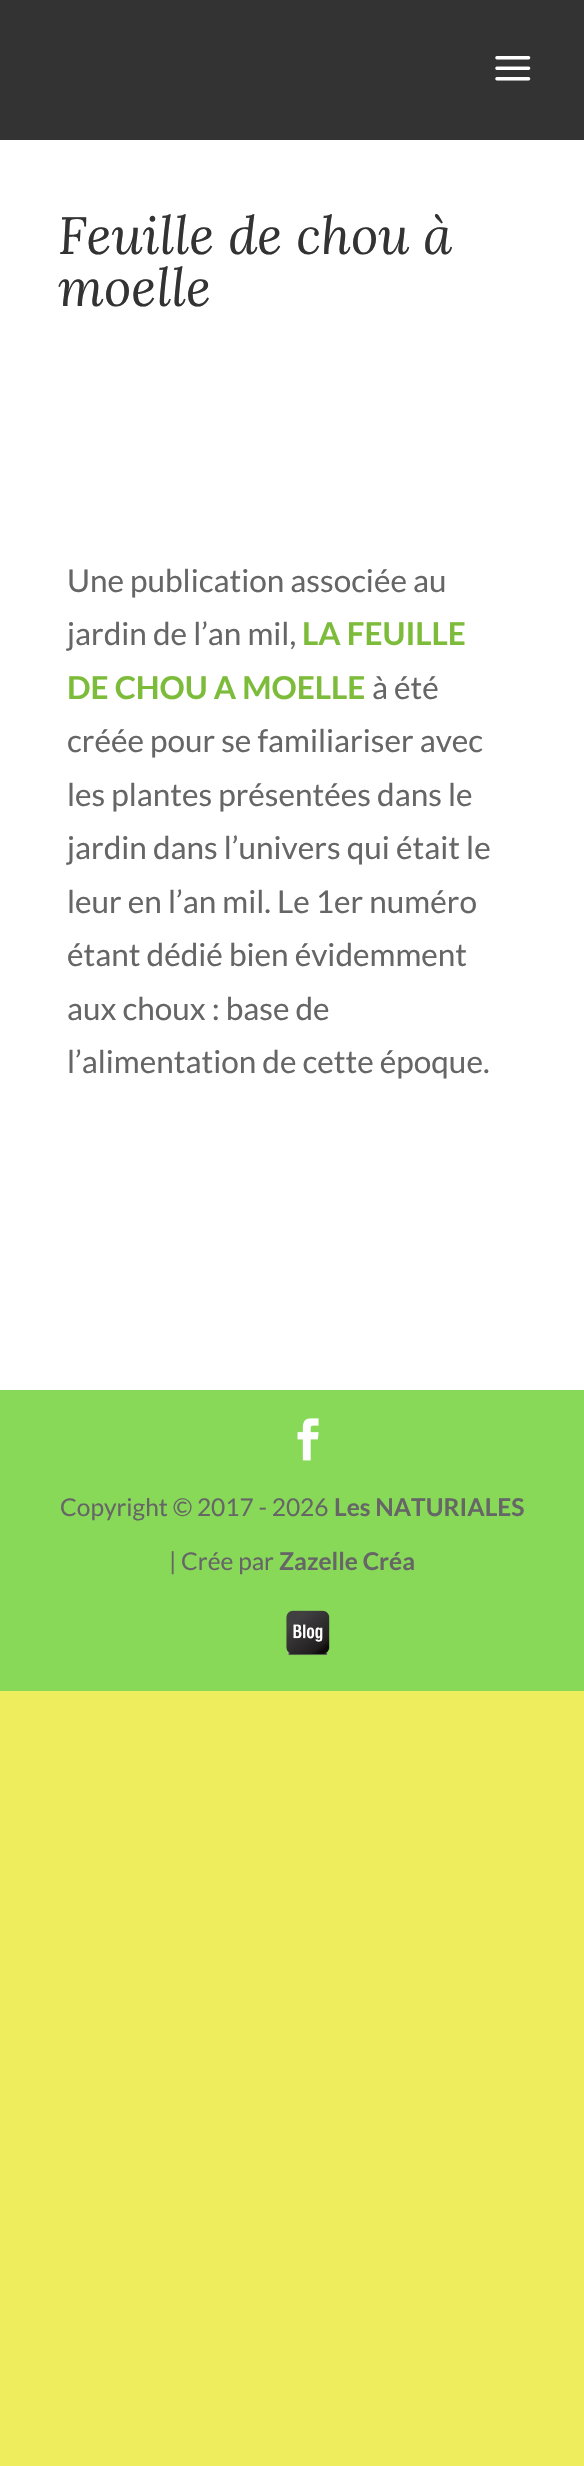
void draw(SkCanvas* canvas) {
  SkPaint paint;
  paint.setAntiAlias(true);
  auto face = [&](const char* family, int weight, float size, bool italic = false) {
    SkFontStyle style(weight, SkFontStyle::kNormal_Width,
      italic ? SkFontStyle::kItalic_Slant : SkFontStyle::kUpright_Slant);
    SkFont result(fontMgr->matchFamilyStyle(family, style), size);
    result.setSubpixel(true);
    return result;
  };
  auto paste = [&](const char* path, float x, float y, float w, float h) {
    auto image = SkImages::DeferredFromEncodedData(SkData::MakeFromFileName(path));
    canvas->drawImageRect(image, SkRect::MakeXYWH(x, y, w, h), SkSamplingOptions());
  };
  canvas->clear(0xffeded5e);
  paint.setColor(0xff333333);
  canvas->drawRect(SkRect::MakeXYWH(0, 0, 584, 140), paint);
  paste("img/1.png", 495, 56, 36, 25);
  paint.setColor(0xffffffff);
  canvas->drawRect(SkRect::MakeXYWH(0, 140, 584, 1250), paint);
  paint.setColor(0xff88d958);
  canvas->drawRect(SkRect::MakeXYWH(0, 1390, 584, 301), paint);
  paste("img/2.png", 297, 1418, 22, 43);
  paste("img/3.png", 286, 1610, 44, 46);
  auto f0 = face("Lora", 400, 52.5f, true);
  paint.setColor(0xff333333);
  canvas->drawString("Feuille de chou à", 58, 254, f0, paint);
  canvas->drawString("moelle", 58, 306, f0, paint);
  auto f1 = face("Lato", 400, 31.5f);
  paint.setColor(0xff666666);
  canvas->drawString("Une publication associée au", 67, 592, f1, paint);
  canvas->drawString("jardin de l’an mil,", 67, 645, f1, paint);
  auto f2 = face("Lato", 700, 31.5f);
  paint.setColor(0xff7dbc3a);
  canvas->drawString("LA FEUILLE", 302, 645, f2, paint);
  canvas->drawString("DE CHOU A MOELLE", 67, 699, f2, paint);
  paint.setColor(0xff666666);
  {
    const struct { const char* s; float x, y; } items[] = {
      {"à été", 372, 699},
      {"créée pour se familiariser avec", 67, 752},
      {"les plantes présentées dans le", 67, 806},
      {"jardin dans l’univers qui était le", 67, 859},
      {"leur en l’an mil. Le 1er numéro", 67, 913},
      {"étant dédié bien évidemment", 67, 966},
      {"aux choux : base de", 67, 1020},
      {"l’alimentation de cette époque.", 67, 1073},
    };
    for (auto [s, x, y] : items) {
      canvas->drawString(s, x, y, f1, paint);
    }
  }
  auto f3 = face("Lato", 400, 24.5f);
  canvas->drawString("Copyright © 2017 - 2026", 60, 1516, f3, paint);
  auto f4 = face("Lato", 700, 24.5f);
  canvas->drawString("Les NATURIALES", 334, 1516, f4, paint);
  canvas->drawString("| Crée par", 169, 1570, f3, paint);
  canvas->drawString("Zazelle Créa", 279, 1570, f4, paint);
}
